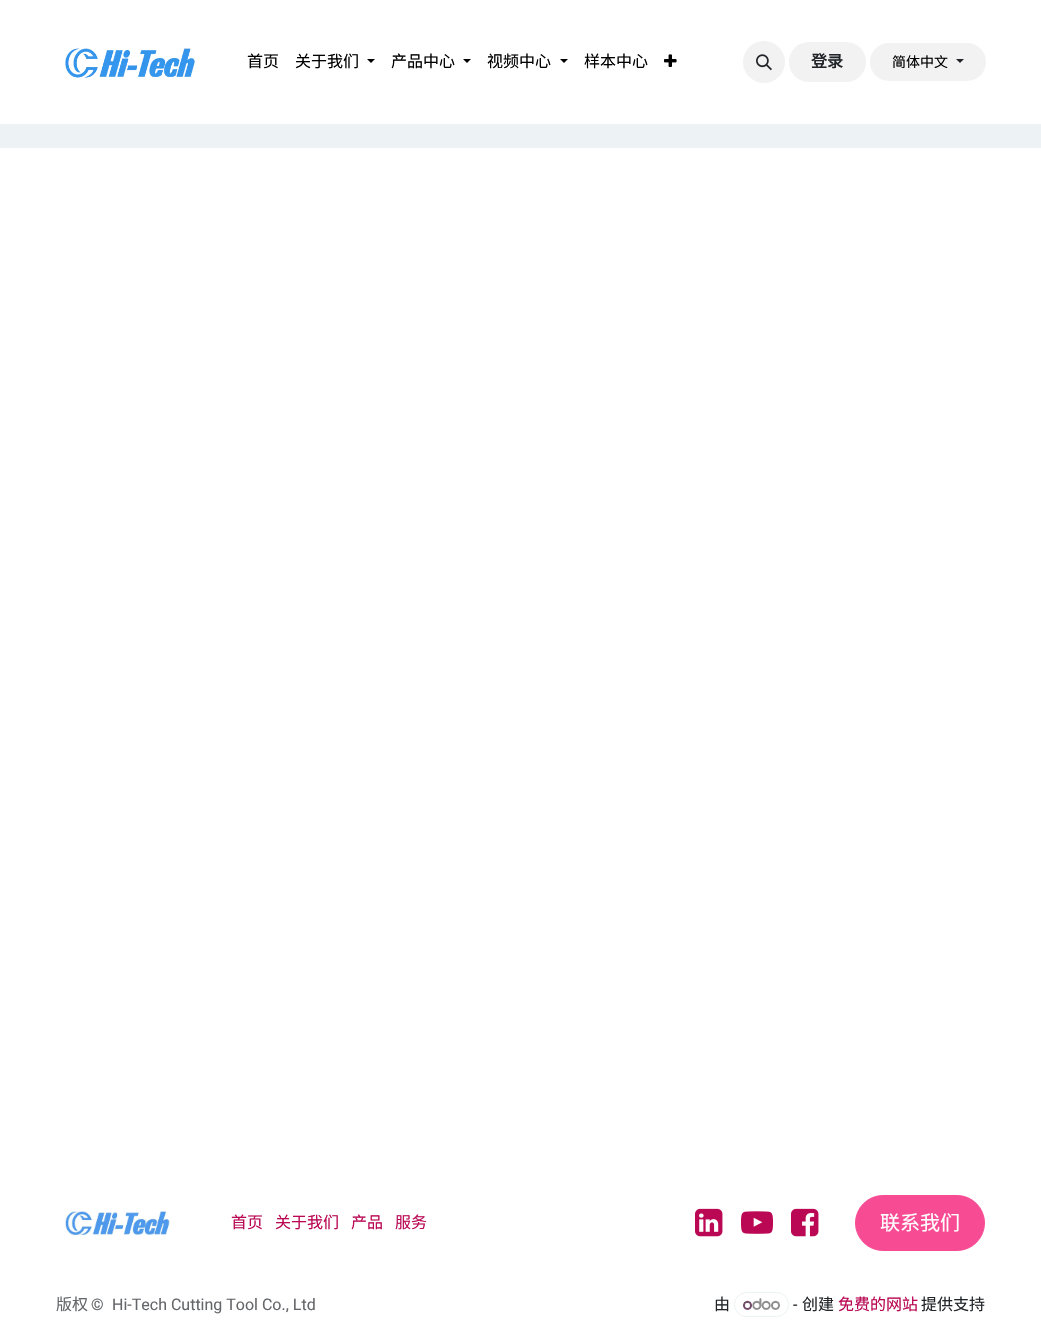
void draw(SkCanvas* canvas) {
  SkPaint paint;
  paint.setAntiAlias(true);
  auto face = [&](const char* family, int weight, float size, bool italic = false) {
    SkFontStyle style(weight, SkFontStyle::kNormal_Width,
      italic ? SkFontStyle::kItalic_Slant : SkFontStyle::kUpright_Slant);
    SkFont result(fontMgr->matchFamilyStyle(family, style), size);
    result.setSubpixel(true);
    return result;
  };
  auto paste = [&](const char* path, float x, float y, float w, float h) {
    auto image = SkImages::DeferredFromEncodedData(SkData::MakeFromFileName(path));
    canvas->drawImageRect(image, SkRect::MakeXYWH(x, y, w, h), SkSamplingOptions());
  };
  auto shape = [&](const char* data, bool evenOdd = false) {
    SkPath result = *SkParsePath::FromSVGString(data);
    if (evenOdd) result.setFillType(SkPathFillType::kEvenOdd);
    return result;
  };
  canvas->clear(0xffffffff);
  paste("img/1.png", 65, 48, 130, 30);
  paint.setColor(0xff000000);
  canvas->drawPath(shape("M367 59H375L371 63Z"), paint);
  canvas->drawPath(shape("M463 59H471L467 63Z"), paint);
  canvas->drawPath(shape("M560 59H568L564 63Z"), paint);
  paste("img/2.png", 664, 54, 13, 13);
  paint.setColor(0xfff2f2f2);
  canvas->drawCircle(764, 62, 21, paint);
  paste("img/3.png", 756, 54, 16, 17);
  canvas->drawRoundRect(SkRect::MakeXYWH(789, 42, 77, 40), 20, 20, paint);
  canvas->drawRoundRect(SkRect::MakeXYWH(870, 43, 116, 38), 19, 19, paint);
  paint.setColor(0xff212529);
  canvas->drawPath(shape("M956 59H964L960 63Z"), paint);
  paint.setColor(0xffedf2f4);
  canvas->drawRect(SkRect::MakeXYWH(0, 124, 1041, 24), paint);
  paste("img/4.png", 65, 1211, 105, 25);
  paste("img/5.png", 695, 1208, 28, 29);
  paste("img/6.png", 741, 1211, 32, 23);
  paste("img/7.png", 791, 1208, 28, 29);
  paint.setColor(0xfff74b94);
  canvas->drawRoundRect(SkRect::MakeXYWH(855.5f, 1195.5f, 129, 55), 27.5f, 27.5f, paint);
  paint.setStroke(true);
  paint.setStrokeWidth(1);
  canvas->drawRoundRect(SkRect::MakeXYWH(855.5f, 1195.5f, 129, 55), 27.5f, 27.5f, paint);
  paint.setColor(0xffedf2f4);
  canvas->drawRoundRect(SkRect::MakeXYWH(734.5f, 1292.5f, 54, 24), 12, 12, paint);
  paste("img/8.png", 743, 1298, 37, 12);
  auto f0 = face("Noto Sans CJK SC", 400, 16);
  paint.setStroke(false);
  paint.setColor(0xff000000);
  {
    const struct { const char* s; float x, y; } items[] = {
      {"首页", 247, 67},
      {"关于我们", 295, 67},
      {"产品中心", 391, 67},
      {"视频中心", 487, 67},
      {"样本中心", 584, 67},
    };
    for (auto [s, x, y] : items) {
      canvas->drawString(s, x, y, f0, paint);
    }
  }
  auto f1 = face("Noto Sans CJK SC", 700, 16);
  paint.setColor(0xff212529);
  canvas->drawString("登录", 811, 67, f1, paint);
  auto f2 = face("Noto Sans CJK SC", 400, 14);
  paint.setColor(0xff000000);
  canvas->drawString("简体中文", 892, 67, f2, paint);
  paint.setColor(0xffba0854);
  {
    const struct { const char* s; float x, y; } items[] = {
      {"首页", 231, 1228},
      {"关于我们", 275, 1228},
      {"产品", 351, 1228},
      {"服务", 395, 1228},
    };
    for (auto [s, x, y] : items) {
      canvas->drawString(s, x, y, f0, paint);
    }
  }
  auto f3 = face("Noto Sans CJK SC", 400, 20);
  paint.setColor(0xffffffff);
  canvas->drawString("联系我们", 880, 1230, f3, paint);
  paint.setColor(0xff646669);
  canvas->drawString("版权", 56, 1310, f0, paint);
  auto f4 = face("Roboto", 400, 16);
  canvas->drawString("©", 91, 1310, f4, paint);
  canvas->drawString("Hi-Tech Cutting Tool Co., Ltd", 112, 1310, f4, paint);
  paint.setColor(0xff212529);
  canvas->drawString("由", 714, 1310, f0, paint);
  canvas->drawString("-", 793, 1310, f4, paint);
  canvas->drawString("创建", 802, 1310, f0, paint);
  paint.setColor(0xffba0854);
  canvas->drawString("免费的网站", 838, 1310, f0, paint);
  paint.setColor(0xff212529);
  canvas->drawString("提供支持", 921, 1310, f0, paint);
}
